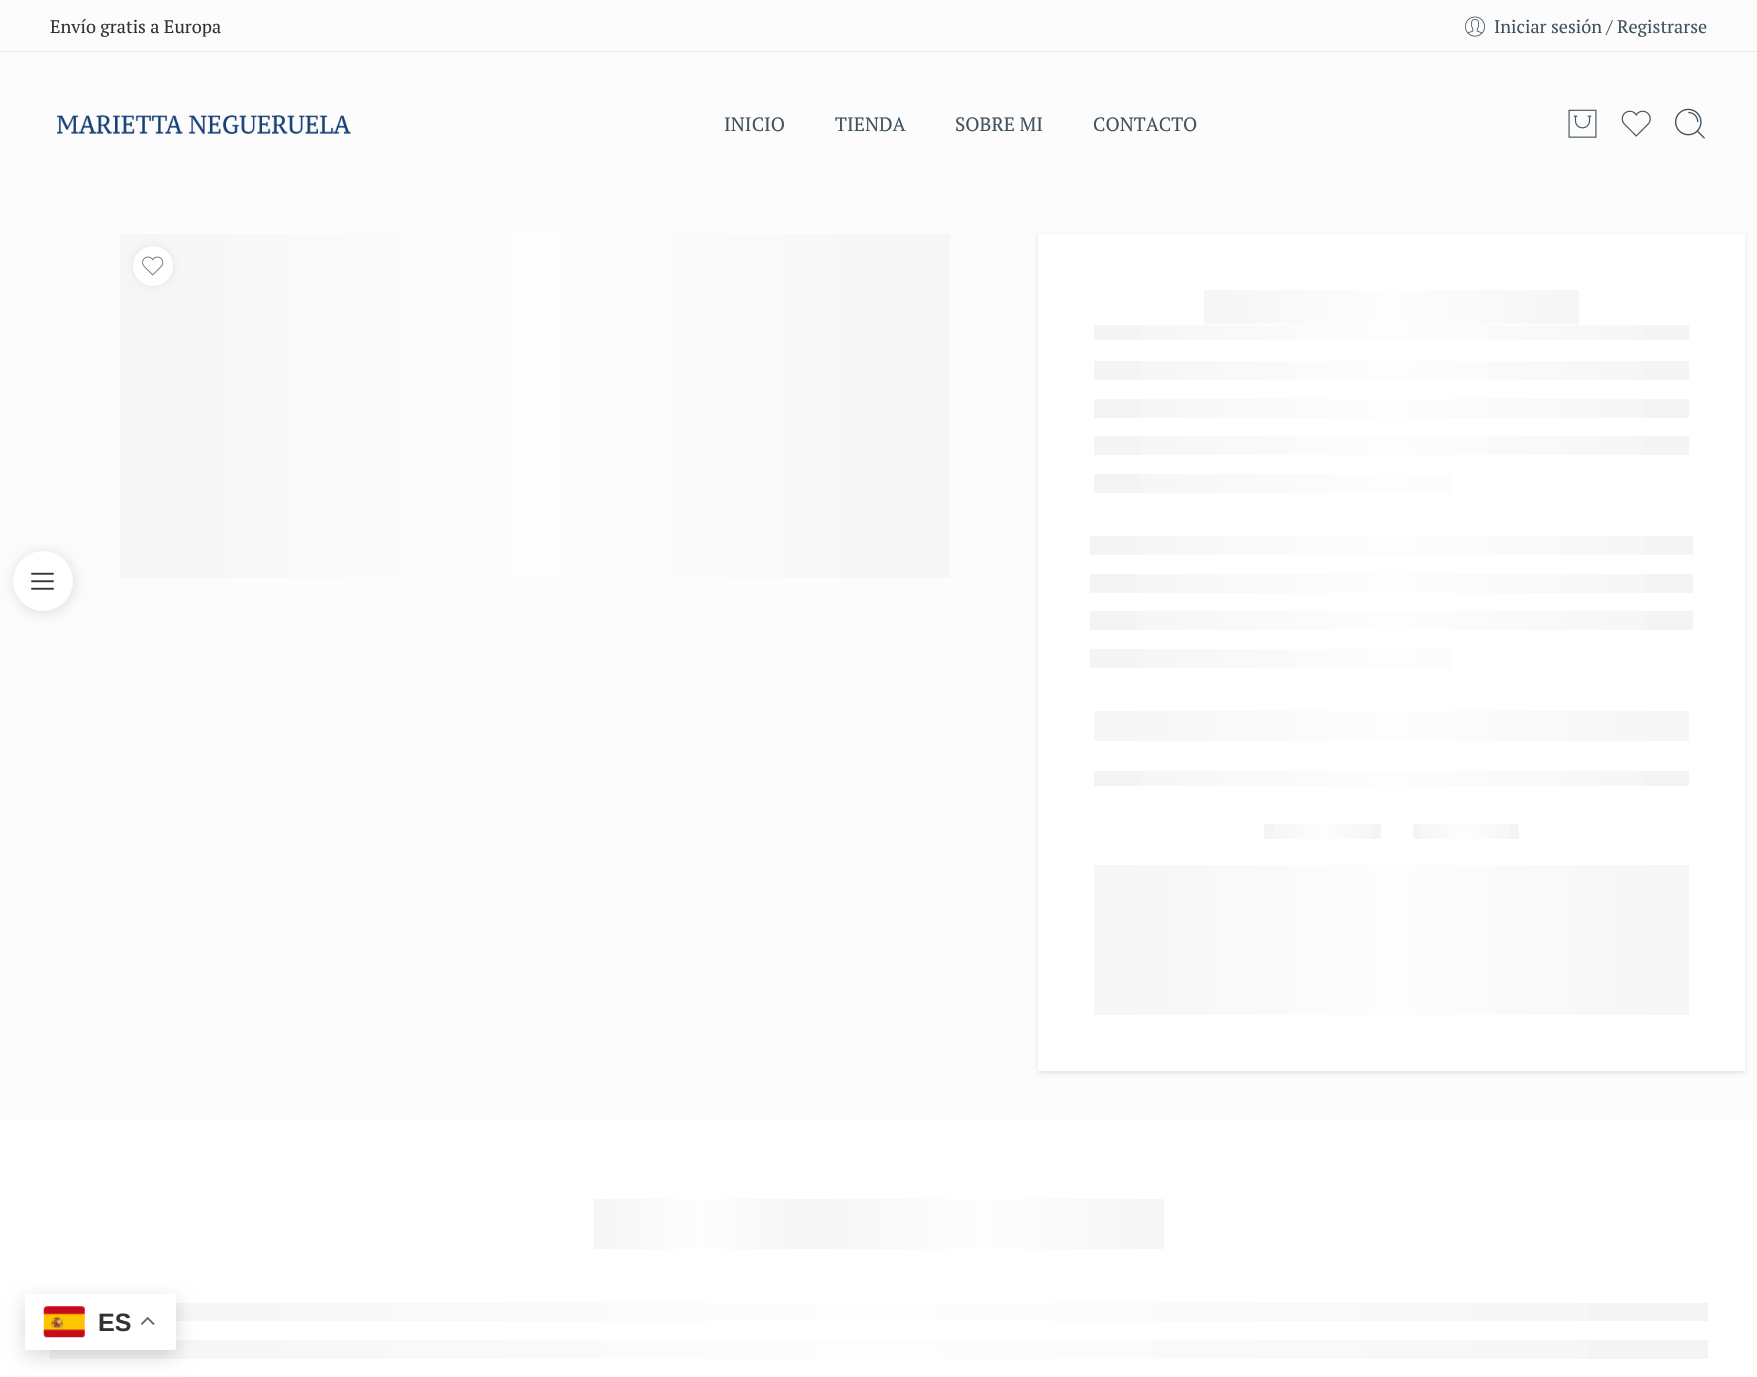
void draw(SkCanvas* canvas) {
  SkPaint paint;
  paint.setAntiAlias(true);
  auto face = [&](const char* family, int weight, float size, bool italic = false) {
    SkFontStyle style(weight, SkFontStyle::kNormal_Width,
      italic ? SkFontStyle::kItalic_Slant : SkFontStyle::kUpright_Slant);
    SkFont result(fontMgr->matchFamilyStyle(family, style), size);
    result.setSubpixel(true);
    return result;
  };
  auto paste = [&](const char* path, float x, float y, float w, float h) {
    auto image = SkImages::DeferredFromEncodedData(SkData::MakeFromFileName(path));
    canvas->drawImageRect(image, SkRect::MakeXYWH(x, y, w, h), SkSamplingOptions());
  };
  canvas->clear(0xffffffff);
  paint.setColor(0xfffcfcfc);
  canvas->drawRect(SkRect::MakeXYWH(0, 0, 1757, 1121), paint);
  paint.setColor(0xffececec);
  canvas->drawRect(SkRect::MakeXYWH(0, 51, 1757, 1), paint);
  paste("img/1.png", 1465, 16, 20, 21);
  paste("img/2.png", 57, 115, 294, 19);
  paste("img/3.png", 1568, 109, 29, 29);
  paste("img/4.png", 1621, 110, 30, 27);
  paste("img/5.png", 1674, 108, 31, 31);
  paint.setColor(0x1a000000);
  paint.setMaskFilter(SkMaskFilter::MakeBlur(kNormal_SkBlurStyle, 6));
  canvas->drawRoundRect(SkRect::MakeXYWH(13, 551, 62, 63), 31, 31, paint);
  paint.setMaskFilter(nullptr);
  paint.setColor(0xffffffff);
  canvas->drawCircle(43, 581, 30, paint);
  paste("img/6.png", 31, 572, 23, 18);
  {
    const SkColor colors[] = {0xfff4f4f4, 0xfffdfdfd, 0xfff4f4f4};
    const float stops[] = {0.2f, 0.5f, 0.8f};
    const SkPoint ends[] = {{-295, 406}, {1365, 406}};
    paint.setShader(SkGradientShader::MakeLinear(ends, colors, stops, 3, SkTileMode::kClamp));
    paint.setAlpha(255);
  }
  canvas->drawRect(SkRect::MakeXYWH(120, 234, 830, 344), paint);
  paint.setShader(nullptr);
  paint.setColor(0x14000000);
  paint.setMaskFilter(SkMaskFilter::MakeBlur(kNormal_SkBlurStyle, 3));
  canvas->drawRoundRect(SkRect::MakeXYWH(133, 246, 40, 40), 20, 20, paint);
  paint.setMaskFilter(nullptr);
  paint.setColor(0xffffffff);
  canvas->drawCircle(153, 266, 20, paint);
  paste("img/7.png", 142, 256, 22, 20);
  paint.setColor(0x1a000000);
  paint.setMaskFilter(SkMaskFilter::MakeBlur(kNormal_SkBlurStyle, 2));
  canvas->drawRect(SkRect::MakeXYWH(1038, 235, 707, 838), paint);
  paint.setMaskFilter(nullptr);
  paint.setColor(0xffffffff);
  canvas->drawRect(SkRect::MakeXYWH(1038, 234, 707, 837), paint);
  {
    const SkColor colors[] = {0xfff4f4f4, 0xfffdfdfd, 0xfff4f4f4};
    const float stops[] = {0.2f, 0.5f, 0.8f};
    const SkPoint ends[] = {{1016, 306}, {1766, 306}};
    paint.setShader(SkGradientShader::MakeLinear(ends, colors, stops, 3, SkTileMode::kClamp));
    paint.setAlpha(255);
  }
  canvas->drawRect(SkRect::MakeXYWH(1204, 290, 375, 34), paint);
  paint.setShader(nullptr);
  paint.setColor(0xfff4f4f4);
  canvas->drawRect(SkRect::MakeXYWH(1094, 325, 595, 15), paint);
  {
    const SkColor colors[] = {0x00ffffff, 0xccffffff, 0x00ffffff};
    const float stops[] = {0.2f, 0.5f, 0.8f};
    const SkPoint ends[] = {{796, 333}, {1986, 332}};
    paint.setShader(SkGradientShader::MakeLinear(ends, colors, stops, 3, SkTileMode::kClamp));
    paint.setAlpha(255);
  }
  canvas->drawRect(SkRect::MakeXYWH(1140, 325, 502, 15), paint);
  paint.setShader(nullptr);
  {
    const struct { float x, y, w, h; SkColor color; } items[] = {
      {1094, 474, 357, 19, 0xfff4f4f4},
      {1094, 436, 595, 19, 0xfff4f4f4},
      {1094, 399, 595, 19, 0xfff4f4f4},
      {1094, 361, 595, 19, 0xfff4f4f4},
    };
    for (auto [x, y, w, h, color] : items) {
      paint.setColor(color);
      canvas->drawRect(SkRect::MakeXYWH(x, y, w, h), paint);
    }
  }
  {
    const SkColor colors[] = {0x00ffffff, 0xccffffff, 0x00ffffff};
    const float stops[] = {0.2f, 0.5f, 0.8f};
    const SkPoint ends[] = {{796, 430}, {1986, 430}};
    paint.setShader(SkGradientShader::MakeLinear(ends, colors, stops, 3, SkTileMode::kClamp));
    paint.setAlpha(255);
  }
  canvas->drawRect(SkRect::MakeXYWH(1140, 361, 502, 132), paint);
  paint.setShader(nullptr);
  {
    const struct { float x, y, w, h; SkColor color; } items[] = {
      {1090, 649, 361, 19, 0xfff4f4f4},
      {1090, 611, 603, 19, 0xfff4f4f4},
      {1090, 574, 603, 19, 0xfff4f4f4},
      {1090, 536, 603, 19, 0xfff4f4f4},
    };
    for (auto [x, y, w, h, color] : items) {
      paint.setColor(color);
      canvas->drawRect(SkRect::MakeXYWH(x, y, w, h), paint);
    }
  }
  {
    const SkColor colors[] = {0x00ffffff, 0xccffffff, 0x00ffffff};
    const float stops[] = {0.2f, 0.5f, 0.8f};
    const SkPoint ends[] = {{789, 605}, {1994, 605}};
    paint.setShader(SkGradientShader::MakeLinear(ends, colors, stops, 3, SkTileMode::kClamp));
    paint.setAlpha(255);
  }
  canvas->drawRect(SkRect::MakeXYWH(1137, 536, 509, 132), paint);
  {
    const SkColor colors[] = {0xfff4f4f4, 0xfffdfdfd, 0xfff4f4f4};
    const float stops[] = {0.2f, 0.5f, 0.8f};
    const SkPoint ends[] = {{796, 726}, {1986, 726}};
    paint.setShader(SkGradientShader::MakeLinear(ends, colors, stops, 3, SkTileMode::kClamp));
    paint.setAlpha(255);
  }
  canvas->drawRect(SkRect::MakeXYWH(1094, 711, 595, 30), paint);
  paint.setShader(nullptr);
  paint.setColor(0xfff4f4f4);
  canvas->drawRect(SkRect::MakeXYWH(1094, 771, 595, 15), paint);
  {
    const SkColor colors[] = {0x00ffffff, 0xccffffff, 0x00ffffff};
    const float stops[] = {0.2f, 0.5f, 0.8f};
    const SkPoint ends[] = {{796, 779}, {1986, 779}};
    paint.setShader(SkGradientShader::MakeLinear(ends, colors, stops, 3, SkTileMode::kClamp));
    paint.setAlpha(255);
  }
  canvas->drawRect(SkRect::MakeXYWH(1140, 771, 502, 15), paint);
  paint.setShader(nullptr);
  paint.setColor(0xfff4f4f4);
  canvas->drawRect(SkRect::MakeXYWH(1264, 824, 117, 15), paint);
  {
    const SkColor colors[] = {0x00ffffff, 0xccffffff, 0x00ffffff};
    const float stops[] = {0.2f, 0.5f, 0.8f};
    const SkPoint ends[] = {{1206, 831}, {1439, 831}};
    paint.setShader(SkGradientShader::MakeLinear(ends, colors, stops, 3, SkTileMode::kClamp));
    paint.setAlpha(255);
  }
  canvas->drawRect(SkRect::MakeXYWH(1273, 824, 99, 15), paint);
  paint.setShader(nullptr);
  paint.setColor(0xfff4f4f4);
  canvas->drawRect(SkRect::MakeXYWH(1413, 824, 106, 15), paint);
  {
    const SkColor colors[] = {0x00ffffff, 0xccffffff, 0x00ffffff};
    const float stops[] = {0.2f, 0.5f, 0.8f};
    const SkPoint ends[] = {{1359, 831}, {1571, 831}};
    paint.setShader(SkGradientShader::MakeLinear(ends, colors, stops, 3, SkTileMode::kClamp));
    paint.setAlpha(255);
  }
  canvas->drawRect(SkRect::MakeXYWH(1420, 824, 90, 15), paint);
  {
    const SkColor colors[] = {0xfff4f4f4, 0xfffdfdfd, 0xfff4f4f4};
    const float stops[] = {0.2f, 0.5f, 0.8f};
    const SkPoint ends[] = {{796, 940}, {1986, 940}};
    paint.setShader(SkGradientShader::MakeLinear(ends, colors, stops, 3, SkTileMode::kClamp));
    paint.setAlpha(255);
  }
  canvas->drawRect(SkRect::MakeXYWH(1094, 865, 595, 150), paint);
  {
    const SkColor colors[] = {0xfff4f4f4, 0xfffdfdfd, 0xfff4f4f4};
    const float stops[] = {0.2f, 0.5f, 0.8f};
    const SkPoint ends[] = {{488, 1224}, {913, 1224}};
    paint.setShader(SkGradientShader::MakeLinear(ends, colors, stops, 3, SkTileMode::kClamp));
    paint.setAlpha(255);
  }
  canvas->drawRect(SkRect::MakeXYWH(594, 1199, 212, 50), paint);
  {
    const SkColor colors[] = {0xfff4f4f4, 0xfffdfdfd, 0xfff4f4f4};
    const float stops[] = {0.2f, 0.5f, 0.8f};
    const SkPoint ends[] = {{628, 1224}, {1343, 1224}};
    paint.setShader(SkGradientShader::MakeLinear(ends, colors, stops, 3, SkTileMode::kClamp));
    paint.setAlpha(255);
  }
  canvas->drawRect(SkRect::MakeXYWH(806, 1199, 358, 50), paint);
  paint.setShader(nullptr);
  paint.setColor(0xfff4f4f4);
  canvas->drawRect(SkRect::MakeXYWH(50, 1340, 1658, 19), paint);
  canvas->drawRect(SkRect::MakeXYWH(176, 1303, 1532, 18), paint);
  {
    const SkColor colors[] = {0x00ffffff, 0xccffffff, 0x00ffffff};
    const float stops[] = {0.2f, 0.5f, 0.8f};
    const SkPoint ends[] = {{-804, 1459}, {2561, 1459}};
    paint.setShader(SkGradientShader::MakeLinear(ends, colors, stops, 3, SkTileMode::kClamp));
    paint.setAlpha(255);
  }
  canvas->drawRect(SkRect::MakeXYWH(168, 1303, 1421, 56), paint);
  paint.setShader(nullptr);
  paint.setColor(0x26000000);
  paint.setMaskFilter(SkMaskFilter::MakeBlur(kNormal_SkBlurStyle, 9.5f));
  canvas->drawRoundRect(SkRect::MakeXYWH(25, 1300, 151, 56), 2.5f, 2.5f, paint);
  paint.setMaskFilter(nullptr);
  paint.setColor(0xffffffff);
  canvas->drawRoundRect(SkRect::MakeXYWH(25, 1294, 151, 56), 2.5f, 2.5f, paint);
  paste("img/8.png", 43, 1306, 42, 32);
  paste("img/9.png", 141, 1317, 14, 8);
  auto f0 = face("PT Serif", 400, 18.1f);
  paint.setColor(0xff333333);
  canvas->drawString("Envío gratis a Europa", 50, 33, f0, paint);
  paint.setColor(0xff42535e);
  canvas->drawString("Iniciar sesión / Registrarse", 1494, 33, f0, paint);
  auto f1 = face("PT Serif", 400, 19.25f);
  {
    const struct { const char* s; float x, y; } items[] = {
      {"INICIO", 724, 131},
      {"TIENDA", 835, 131},
      {"SOBRE MI", 955, 131},
      {"CONTACTO", 1093, 131},
    };
    for (auto [s, x, y] : items) {
      canvas->drawString(s, x, y, f1, paint);
    }
  }
  auto f2 = face("Liberation Sans", 700, 25);
  paint.setColor(0xff333333);
  canvas->drawString("ES", 98, 1331, f2, paint);
}
